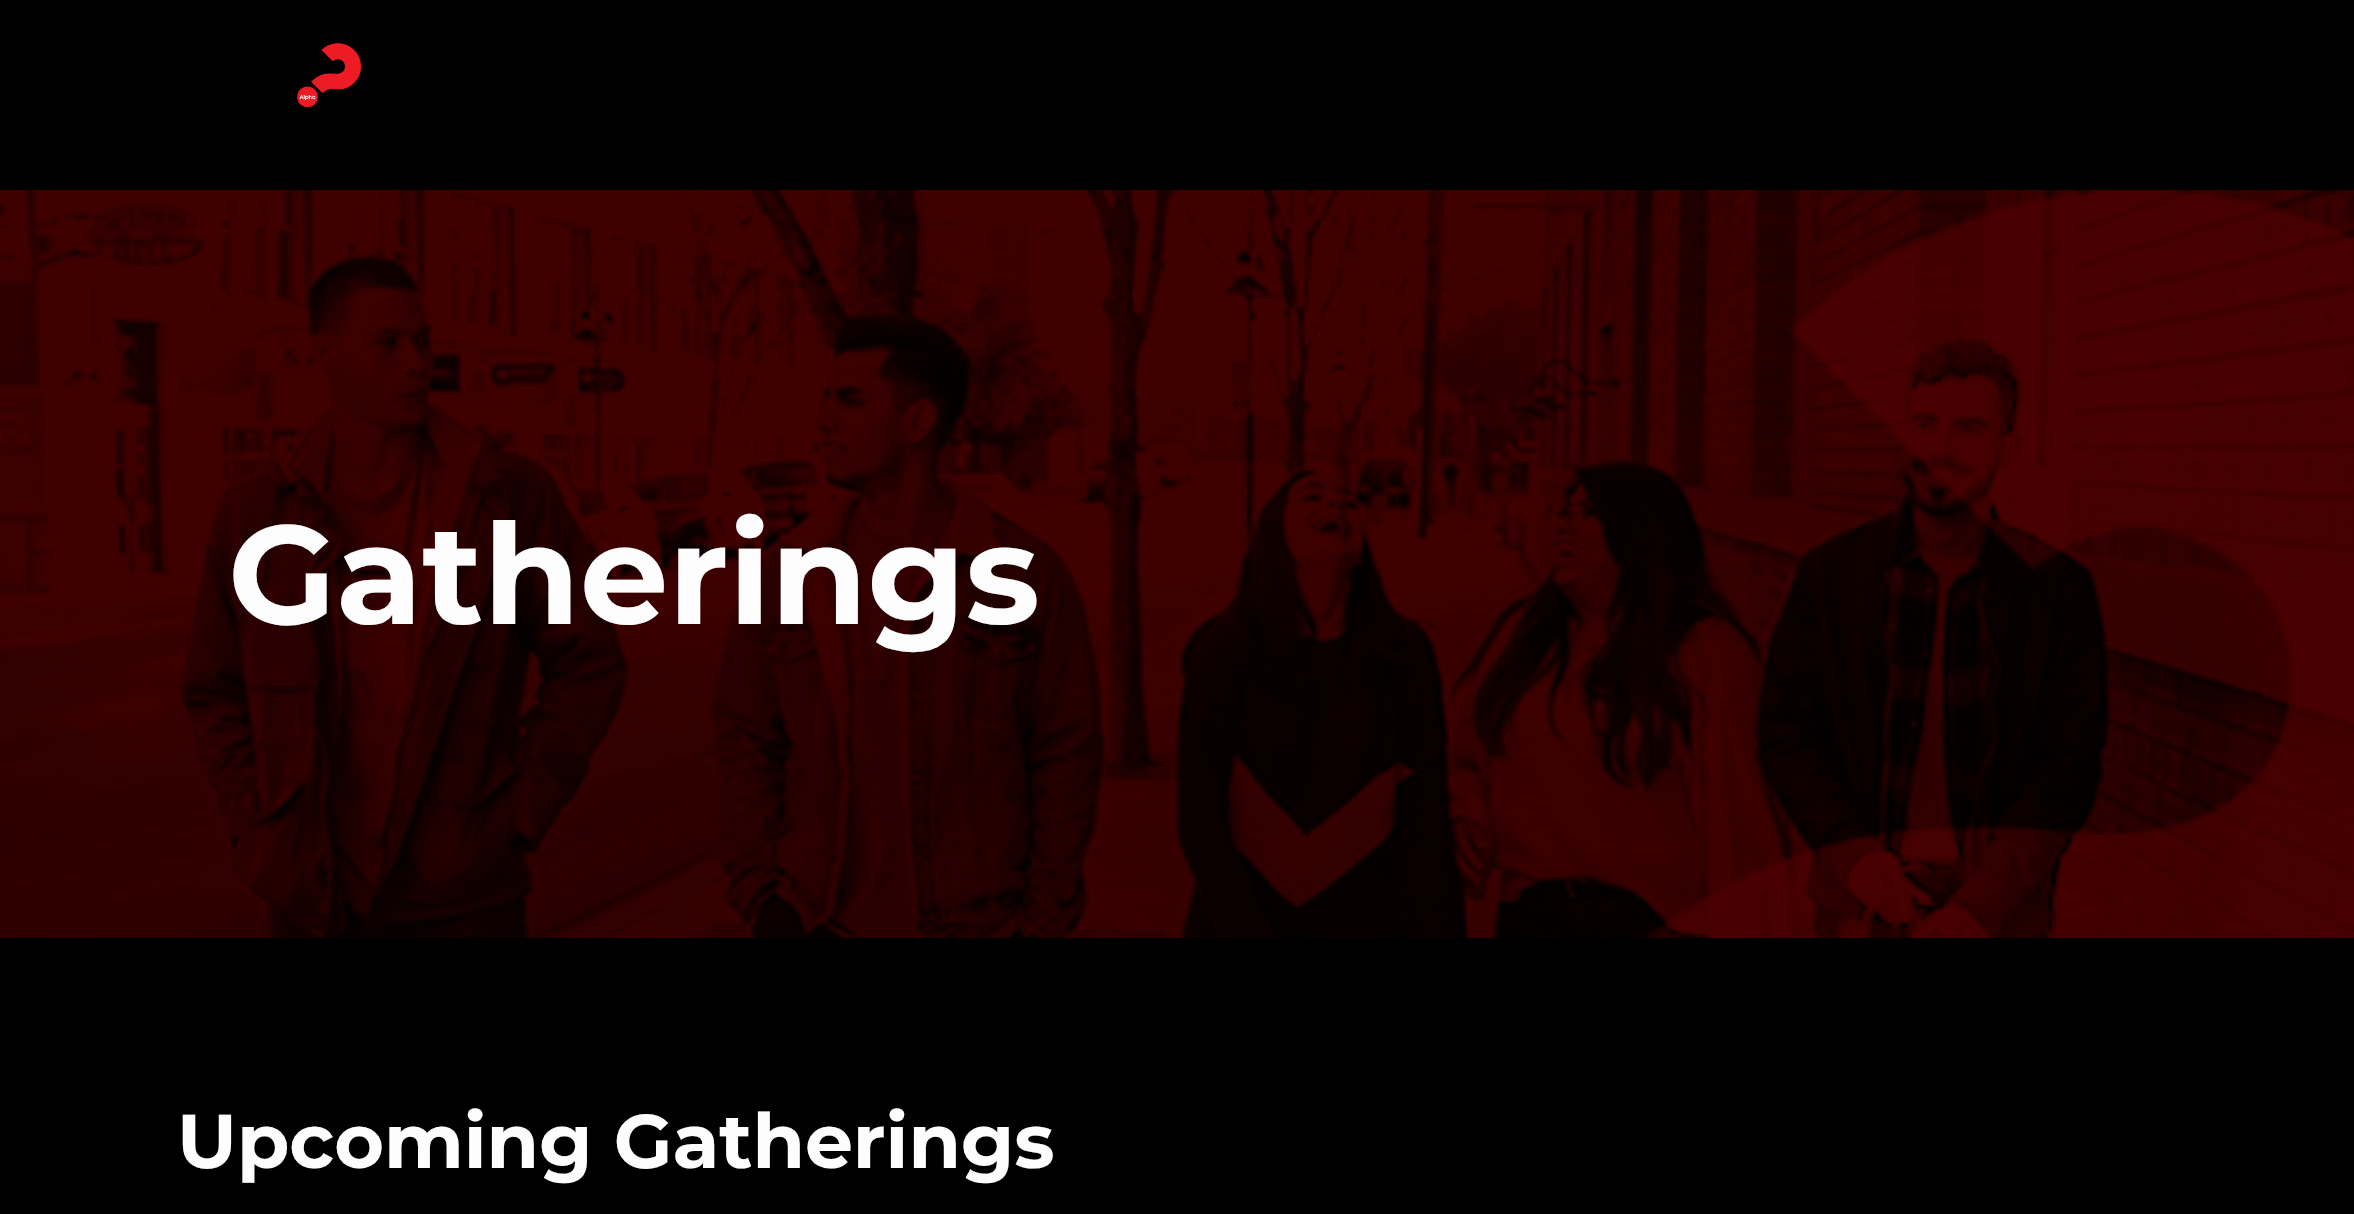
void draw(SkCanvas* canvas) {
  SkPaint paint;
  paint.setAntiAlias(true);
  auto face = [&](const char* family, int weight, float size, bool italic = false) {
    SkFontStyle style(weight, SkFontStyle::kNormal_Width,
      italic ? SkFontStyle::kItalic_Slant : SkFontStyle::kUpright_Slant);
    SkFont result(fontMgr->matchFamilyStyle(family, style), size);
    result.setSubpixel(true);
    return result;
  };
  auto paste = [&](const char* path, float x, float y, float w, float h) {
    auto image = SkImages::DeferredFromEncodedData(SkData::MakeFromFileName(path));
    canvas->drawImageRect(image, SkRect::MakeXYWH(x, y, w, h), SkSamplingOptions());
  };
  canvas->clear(0xff000000);
  paste("img/1.png", 297, 43, 64, 64);
  paste("img/2.png", 0, 190, 2354, 748);
  auto f0 = face("Montserrat", 700, 140);
  paint.setColor(0xfffdfdfd);
  canvas->drawString("Gatherings", 228, 624, f0, paint);
  auto f1 = face("Montserrat", 700, 76);
  canvas->drawString("Upcoming Gatherings", 177, 1168, f1, paint);
}
